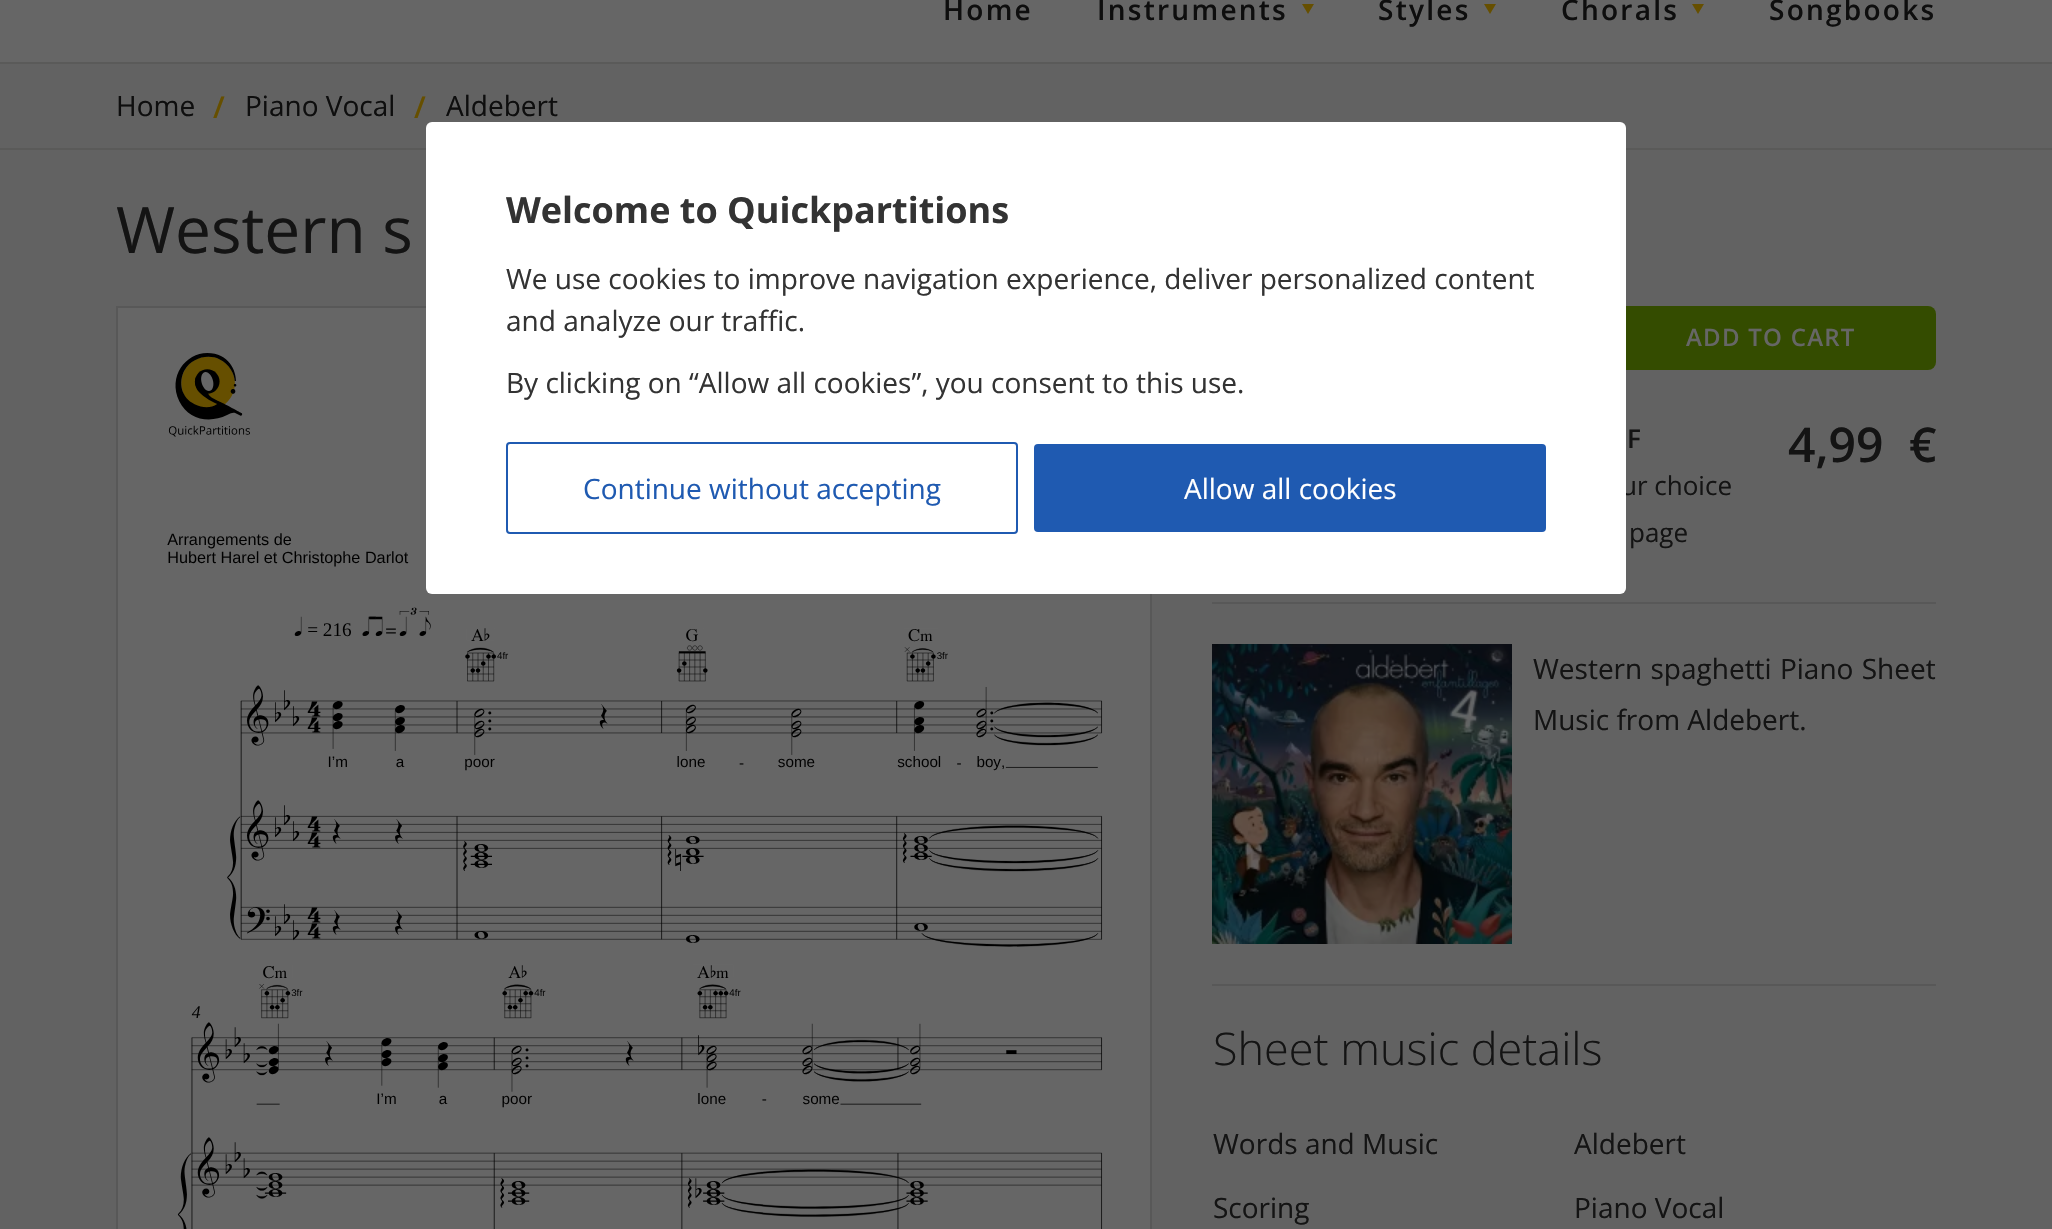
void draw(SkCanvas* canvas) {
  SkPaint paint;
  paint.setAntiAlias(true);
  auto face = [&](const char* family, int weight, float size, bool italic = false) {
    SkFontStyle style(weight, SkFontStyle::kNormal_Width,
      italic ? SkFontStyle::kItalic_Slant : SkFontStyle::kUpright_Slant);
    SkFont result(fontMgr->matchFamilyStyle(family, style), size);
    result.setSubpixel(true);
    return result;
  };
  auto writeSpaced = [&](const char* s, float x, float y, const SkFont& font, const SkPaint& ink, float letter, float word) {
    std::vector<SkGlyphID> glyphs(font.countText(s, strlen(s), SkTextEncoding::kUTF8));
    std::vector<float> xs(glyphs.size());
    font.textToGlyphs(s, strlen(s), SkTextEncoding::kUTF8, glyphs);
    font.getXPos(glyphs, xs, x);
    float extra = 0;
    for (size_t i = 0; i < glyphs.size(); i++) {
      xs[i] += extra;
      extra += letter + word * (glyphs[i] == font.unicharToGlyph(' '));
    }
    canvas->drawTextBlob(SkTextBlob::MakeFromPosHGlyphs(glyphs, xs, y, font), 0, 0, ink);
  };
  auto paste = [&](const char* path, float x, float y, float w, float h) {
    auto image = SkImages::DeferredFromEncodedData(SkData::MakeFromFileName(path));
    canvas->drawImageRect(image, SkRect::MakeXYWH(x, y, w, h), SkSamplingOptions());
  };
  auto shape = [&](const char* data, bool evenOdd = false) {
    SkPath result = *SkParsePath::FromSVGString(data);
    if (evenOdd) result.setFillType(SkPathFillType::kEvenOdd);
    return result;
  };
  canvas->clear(0xff626262);
  paint.setColor(0xff666666);
  canvas->drawRect(SkRect::MakeXYWH(0, 0, 2052, 62), paint);
  paint.setColor(0xff5a5a59);
  canvas->drawRect(SkRect::MakeXYWH(0, 62, 2052, 2), paint);
  paint.setColor(0xff664f00);
  canvas->drawPath(shape("M1302 4H1314L1308 14Z"), paint);
  canvas->drawPath(shape("M1484 4H1496L1490 14Z"), paint);
  canvas->drawPath(shape("M1692 4H1704L1698 14Z"), paint);
  paint.setColor(0xff5a5a59);
  canvas->drawRect(SkRect::MakeXYWH(0, 148, 2052, 2), paint);
  paint.setColor(0xff666666);
  canvas->drawRect(SkRect::MakeXYWH(117, 307, 1034, 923), paint);
  paint.setStroke(true);
  paint.setStrokeWidth(2);
  paint.setColor(0xff585858);
  canvas->drawRect(SkRect::MakeXYWH(117, 307, 1034, 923), paint);
  paste("img/1.png", 167, 353, 936, 876);
  paint.setStroke(false);
  paint.setColor(0xff344c00);
  canvas->drawRoundRect(SkRect::MakeXYWH(1604, 306, 332, 64), 8, 8, paint);
  paint.setColor(0xff585858);
  canvas->drawRect(SkRect::MakeXYWH(1212, 602, 724, 2), paint);
  paste("img/2.png", 1212, 644, 300, 300);
  canvas->drawRect(SkRect::MakeXYWH(1212, 984, 724, 2), paint);
  auto f0 = face("Open Sans", 600, 28);
  paint.setColor(0xff0e0e0e);
  {
    const struct { const char* s; float x, y; } items[] = {
      {"Home", 943, 20},
      {"Instruments", 1097, 20},
      {"Styles", 1378, 20},
      {"Chorals", 1561, 20},
      {"Songbooks", 1769, 20},
    };
    for (auto [s, x, y] : items) {
      writeSpaced(s, x, y, f0, paint, 2.25f, 0);
    }
  }
  auto f1 = face("Open Sans", 400, 28);
  canvas->drawString("Home", 116, 116, f1, paint);
  auto f2 = face("Open Sans", 600, 30);
  paint.setColor(0xff664f00);
  canvas->drawString("/", 213, 118, f2, paint);
  paint.setColor(0xff0e0e0e);
  canvas->drawString("Piano Vocal", 245, 116, f1, paint);
  paint.setColor(0xff664f00);
  canvas->drawString("/", 414, 118, f2, paint);
  paint.setColor(0xff0e0e0e);
  canvas->drawString("Aldebert", 446, 116, f1, paint);
  auto f3 = face("Open Sans", 400, 64);
  paint.setColor(0xff141414);
  canvas->drawString("Western s", 116, 253, f3, paint);
  auto f4 = face("Open Sans", 600, 24);
  paint.setColor(0xff666666);
  writeSpaced("ADD TO CART", 1686, 346, f4, paint, 1.25f, 0);
  auto f5 = face("Open Sans", 600, 26);
  paint.setColor(0xff141414);
  canvas->drawString("F", 1627, 448, f5, paint);
  auto f6 = face("Open Sans", 400, 26);
  canvas->drawString("ur choice", 1621, 495, f6, paint);
  canvas->drawString("page", 1629, 542, f6, paint);
  auto f7 = face("Open Sans", 600, 48);
  canvas->drawString("4,99", 1788, 462, f7, paint);
  canvas->drawString("€", 1909, 462, f7, paint);
  writeSpaced("Western spaghetti Piano Sheet", 1533, 679, f1, paint, 0, 1);
  canvas->drawString("Music from Aldebert.", 1533, 730, f1, paint);
  auto f8 = face("Open Sans", 300, 45);
  canvas->drawString("Sheet music details", 1213, 1065, f8, paint);
  {
    const struct { const char* s; float x, y; } items[] = {
      {"Words and Music", 1213, 1154},
      {"Aldebert", 1574, 1154},
      {"Scoring", 1213, 1218},
      {"Piano Vocal", 1574, 1218},
    };
    for (auto [s, x, y] : items) {
      canvas->drawString(s, x, y, f1, paint);
    }
  }
  paint.setColor(0xffffffff);
  canvas->drawRoundRect(SkRect::MakeXYWH(426, 122, 1200, 472), 6, 6, paint);
  auto f9 = face("Open Sans", 700, 36);
  paint.setColor(0xff333333);
  canvas->drawString("Welcome to Quickpartitions", 506, 223, f9, paint);
  {
    const struct { const char* s; float x, y; } items[] = {
      {"We use cookies to improve navigation experience, deliver personalized content", 506, 289},
      {"and analyze our traffic.", 506, 331},
      {"By clicking on “Allow all cookies”, you consent to this use.", 506, 393},
    };
    for (auto [s, x, y] : items) {
      canvas->drawString(s, x, y, f1, paint);
    }
  }
  paint.setStroke(true);
  paint.setColor(0xff1f5ab1);
  canvas->drawRoundRect(SkRect::MakeXYWH(507, 443, 510, 90), 3, 3, paint);
  paint.setStroke(false);
  canvas->drawString("Continue without accepting", 583, 499, f1, paint);
  canvas->drawRoundRect(SkRect::MakeXYWH(1034, 444, 512, 88), 4, 4, paint);
  paint.setColor(0xffffffff);
  canvas->drawString("Allow all cookies", 1184, 499, f1, paint);
}
